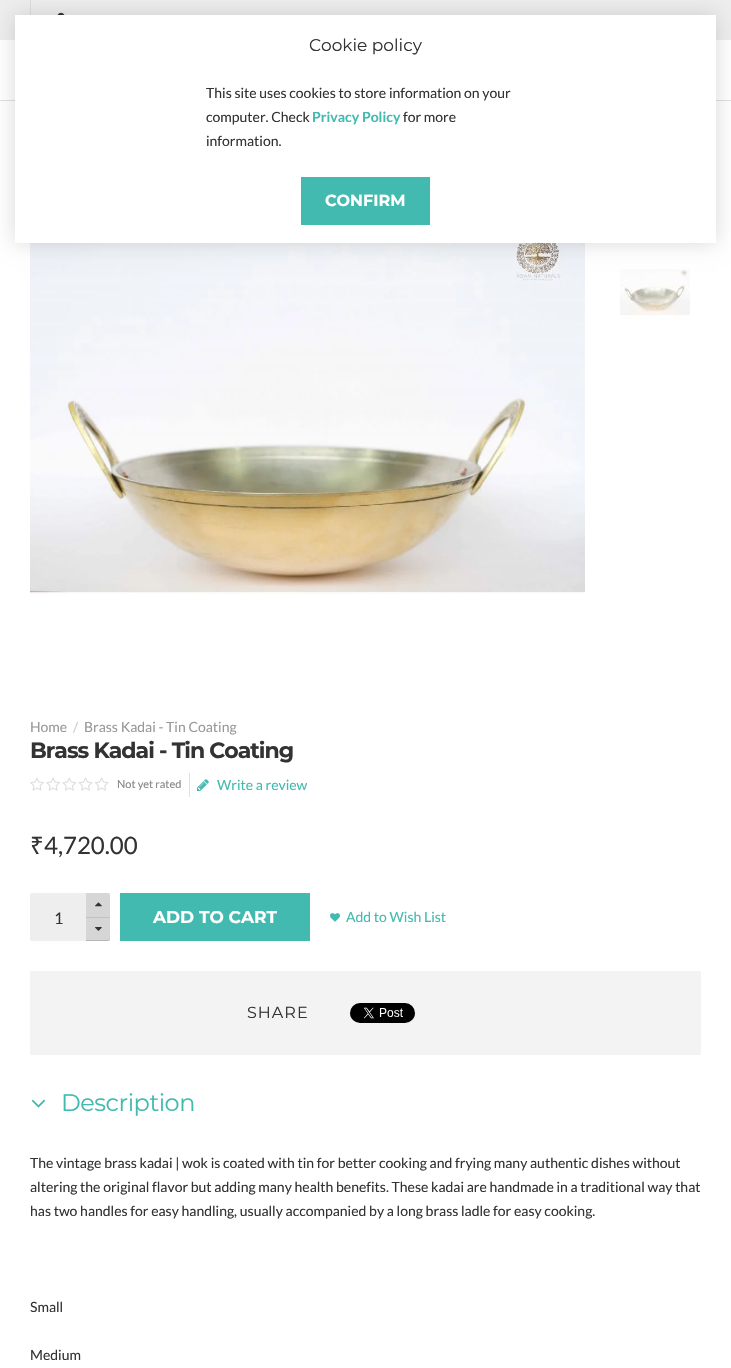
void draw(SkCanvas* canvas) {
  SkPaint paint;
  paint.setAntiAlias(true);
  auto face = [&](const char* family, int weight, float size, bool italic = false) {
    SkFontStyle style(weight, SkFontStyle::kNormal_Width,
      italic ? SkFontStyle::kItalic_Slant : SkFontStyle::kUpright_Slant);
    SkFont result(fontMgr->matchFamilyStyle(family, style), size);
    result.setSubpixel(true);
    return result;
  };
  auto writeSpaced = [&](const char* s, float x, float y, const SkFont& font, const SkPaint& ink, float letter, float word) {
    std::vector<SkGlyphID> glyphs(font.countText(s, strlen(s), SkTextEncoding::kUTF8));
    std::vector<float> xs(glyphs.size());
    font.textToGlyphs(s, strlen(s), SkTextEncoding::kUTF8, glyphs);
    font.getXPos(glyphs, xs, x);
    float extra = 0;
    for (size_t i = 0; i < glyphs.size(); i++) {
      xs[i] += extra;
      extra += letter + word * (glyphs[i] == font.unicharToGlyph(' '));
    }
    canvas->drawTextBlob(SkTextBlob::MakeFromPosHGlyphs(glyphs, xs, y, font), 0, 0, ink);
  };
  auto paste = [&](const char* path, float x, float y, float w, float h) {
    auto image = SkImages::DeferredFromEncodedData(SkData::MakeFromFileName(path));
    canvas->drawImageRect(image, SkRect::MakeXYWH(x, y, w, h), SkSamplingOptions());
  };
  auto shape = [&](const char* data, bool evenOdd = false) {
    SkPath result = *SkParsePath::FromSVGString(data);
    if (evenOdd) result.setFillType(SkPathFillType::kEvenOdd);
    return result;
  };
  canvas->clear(0xffffffff);
  {
    const struct { float x, y, w, h; SkColor color; } items[] = {
      {0, 100, 731, 1, 0xffe0e0e0},
      {0, 0, 731, 40, 0xffeeeeee},
      {30, 0, 1, 15, 0xffdddddd},
    };
    for (auto [x, y, w, h, color] : items) {
      paint.setColor(color);
      canvas->drawRect(SkRect::MakeXYWH(x, y, w, h), paint);
    }
  }
  paste("img/1.png", 57, 12, 8, 3);
  paste("img/2.png", 30, 243, 555, 352);
  paste("img/3.png", 620, 269, 70, 51);
  paint.setColor(0x26000000);
  paint.setMaskFilter(SkMaskFilter::MakeBlur(kNormal_SkBlurStyle, 10));
  canvas->drawRect(SkRect::MakeXYWH(15, 15, 701, 228), paint);
  paint.setMaskFilter(nullptr);
  paint.setColor(0xffffffff);
  canvas->drawRect(SkRect::MakeXYWH(15, 15, 701, 228), paint);
  paint.setColor(0xff42bab0);
  canvas->drawRect(SkRect::MakeXYWH(301, 177, 129, 48), paint);
  paste("img/4.png", 30, 777, 79, 14);
  paint.setColor(0xffe0e0e0);
  canvas->drawRect(SkRect::MakeXYWH(189, 773, 1, 24), paint);
  paste("img/5.png", 197, 779, 12, 12);
  paint.setColor(0xffeeeeee);
  canvas->drawRoundRect(SkRect::MakeXYWH(31, 894, 78, 46), 1, 1, paint);
  paint.setStroke(true);
  paint.setStrokeWidth(2);
  canvas->drawRoundRect(SkRect::MakeXYWH(31, 894, 78, 46), 1, 1, paint);
  paint.setStroke(false);
  paint.setColor(0xffd6d6d6);
  canvas->drawPath(shape("M86 893H108C109 893 110 894 110 895V918H86Z"), paint);
  paste("img/6.png", 95, 902, 7, 5);
  canvas->drawPath(shape("M86 917H110V939C110 940 109 941 108 941H86Z"), paint);
  paint.setColor(0x26000000);
  canvas->drawPath(shape("M86 940V941H108C109 941 110 940 110 939V938C110 939 109 940 108 940Z"), paint);
  paint.setColor(0xffc1c1c1);
  canvas->drawRect(SkRect::MakeXYWH(86, 917, 24, 1), paint);
  paste("img/7.png", 95, 927, 7, 4);
  paint.setColor(0xff42bab0);
  canvas->drawRect(SkRect::MakeXYWH(120, 893, 190, 48), paint);
  paste("img/8.png", 330, 913, 10, 9);
  paint.setColor(0xfff3f3f3);
  canvas->drawRect(SkRect::MakeXYWH(30, 971, 671, 84), paint);
  paste("img/9.png", 350, 1003, 65, 20);
  paste("img/10.png", 31, 1099, 15, 9);
  auto f0 = face("Montserrat", 400, 17);
  paint.setColor(0xff333333);
  canvas->drawString("Cookie policy", 309, 51, f0, paint);
  auto f1 = face("Lato", 400, 14);
  canvas->drawString("This site uses cookies to store information on your", 206, 98, f1, paint);
  canvas->drawString("computer. Check", 206, 122, f1, paint);
  auto f2 = face("Lato", 700, 14);
  paint.setColor(0xff42bab0);
  canvas->drawString("Privacy Policy", 312, 122, f2, paint);
  paint.setColor(0xff333333);
  canvas->drawString("for more", 403, 122, f1, paint);
  canvas->drawString("information.", 206, 146, f1, paint);
  auto f3 = face("Montserrat", 700, 16);
  paint.setColor(0xffffffff);
  canvas->drawString("CONFIRM", 325, 206, f3, paint);
  paint.setColor(0xff999999);
  canvas->drawString("Home", 30, 732, f1, paint);
  paint.setColor(0xffcccccc);
  canvas->drawString("/", 73, 732, f1, paint);
  paint.setColor(0xff999999);
  canvas->drawString("Brass Kadai - Tin Coating", 84, 732, f1, paint);
  auto f4 = face("Montserrat", 700, 22);
  paint.setColor(0xff333333);
  writeSpaced("Brass Kadai - Tin Coating", 30, 758, f4, paint, -1, 0);
  auto f5 = face("Lato", 400, 11);
  paint.setColor(0xff858585);
  canvas->drawString("Not yet rated", 117, 788, f5, paint);
  paint.setColor(0xff42bab0);
  canvas->drawString("Write a review", 217, 790, f1, paint);
  auto f6 = face("Noto Sans", 400, 24);
  paint.setColor(0xff333333);
  canvas->drawString("₹", 30, 854, f6, paint);
  auto f7 = face("Lato", 400, 24);
  canvas->drawString("4,720.00", 44, 854, f7, paint);
  auto f8 = face("Lato", 400, 16);
  canvas->drawString("1", 54, 924, f8, paint);
  auto f9 = face("Montserrat", 700, 17);
  paint.setColor(0xffffffff);
  canvas->drawString("ADD TO CART", 153, 923, f9, paint);
  paint.setColor(0xff42bab0);
  canvas->drawString("Add to Wish List", 346, 922, f1, paint);
  auto f10 = face("Montserrat", 400, 16);
  paint.setColor(0xff333333);
  writeSpaced("SHARE", 247, 1018, f10, paint, 1, 0);
  auto f11 = face("Montserrat", 400, 24);
  paint.setColor(0xff42bab0);
  writeSpaced("Description", 61, 1111, f11, paint, -0.5f, 0);
  paint.setColor(0xff333333);
  {
    const struct { const char* s; float x, y; } items[] = {
      {"The vintage brass kadai | wok is coated with tin for better cooking and frying many authentic dishes without", 30, 1168},
      {"altering the original flavor but adding many health benefits. These kadai are handmade in a traditional way that", 30, 1192},
      {"has two handles for easy handling, usually accompanied by a long brass ladle for easy cooking.", 30, 1216},
      {"Small", 30, 1312},
      {"Medium", 30, 1360},
    };
    for (auto [s, x, y] : items) {
      canvas->drawString(s, x, y, f1, paint);
    }
  }
}
